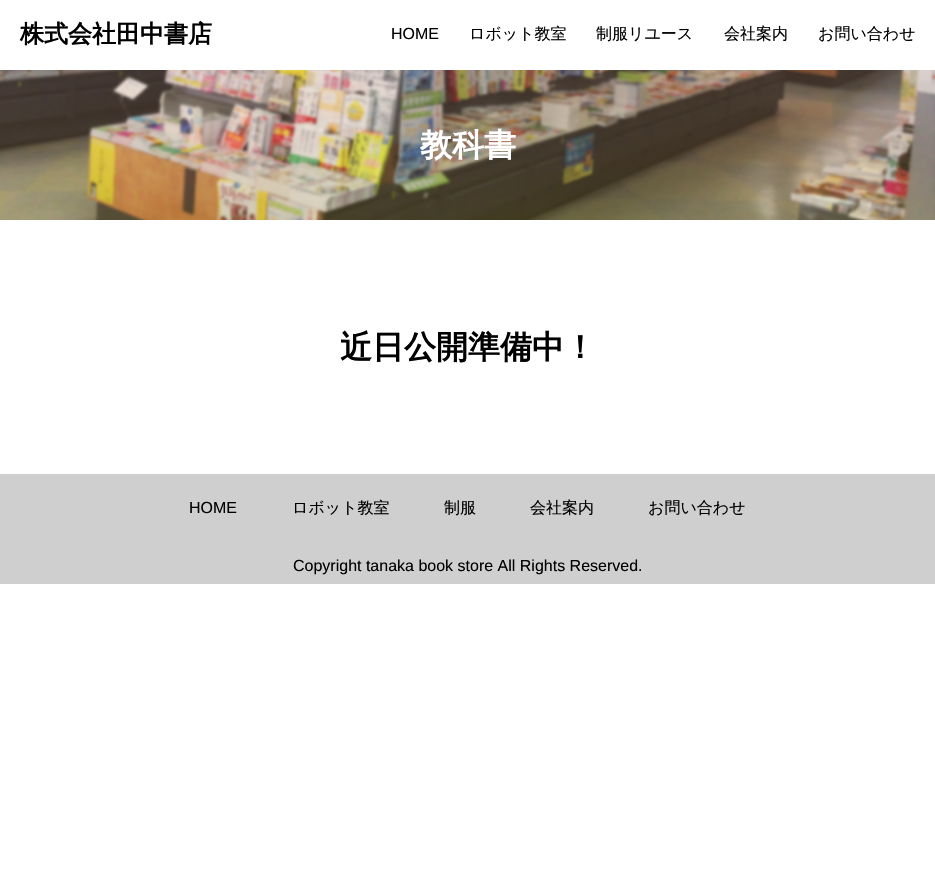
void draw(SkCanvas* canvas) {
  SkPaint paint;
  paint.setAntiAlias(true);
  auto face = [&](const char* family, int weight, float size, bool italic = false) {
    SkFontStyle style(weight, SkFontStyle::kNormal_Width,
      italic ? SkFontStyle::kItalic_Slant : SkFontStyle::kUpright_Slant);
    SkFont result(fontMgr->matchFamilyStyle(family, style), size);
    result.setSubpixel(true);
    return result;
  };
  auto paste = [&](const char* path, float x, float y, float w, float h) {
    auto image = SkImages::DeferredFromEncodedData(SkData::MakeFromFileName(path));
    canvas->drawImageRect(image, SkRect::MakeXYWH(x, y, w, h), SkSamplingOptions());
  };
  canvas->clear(0xffffffff);
  paste("img/1.png", 0, 70, 935, 150);
  paint.setColor(0xffcfcfcf);
  canvas->drawRect(SkRect::MakeXYWH(0, 474, 935, 110), paint);
  auto f0 = face("WenQuanYi Zen Hei", 700, 24);
  paint.setColor(0xff000000);
  canvas->drawString("株式会社田中書店", 20, 42, f0, paint);
  auto f1 = face("Liberation Sans", 400, 16);
  canvas->drawString("HOME", 391, 39, f1, paint);
  auto f2 = face("WenQuanYi Zen Hei", 500, 16);
  {
    const struct { const char* s; float x, y; } items[] = {
      {"ロボット教室", 469, 39},
      {"制服リユース", 596, 39},
      {"会社案内", 724, 39},
      {"お問い合わせ", 818, 39},
    };
    for (auto [s, x, y] : items) {
      canvas->drawString(s, x, y, f2, paint);
    }
  }
  auto f3 = face("WenQuanYi Zen Hei", 700, 32);
  paint.setColor(0xffffffff);
  canvas->drawString("教科書", 420, 156, f3, paint);
  paint.setColor(0xff000000);
  canvas->drawString("近日公開準備中！", 340, 358, f3, paint);
  canvas->drawString("HOME", 189, 513, f1, paint);
  {
    const struct { const char* s; float x, y; } items[] = {
      {"ロボット教室", 292, 513},
      {"制服", 444, 513},
      {"会社案内", 530, 513},
      {"お問い合わせ", 648, 513},
    };
    for (auto [s, x, y] : items) {
      canvas->drawString(s, x, y, f2, paint);
    }
  }
  canvas->drawString("Copyright tanaka book store All Rights Reserved.", 293, 571, f1, paint);
}
